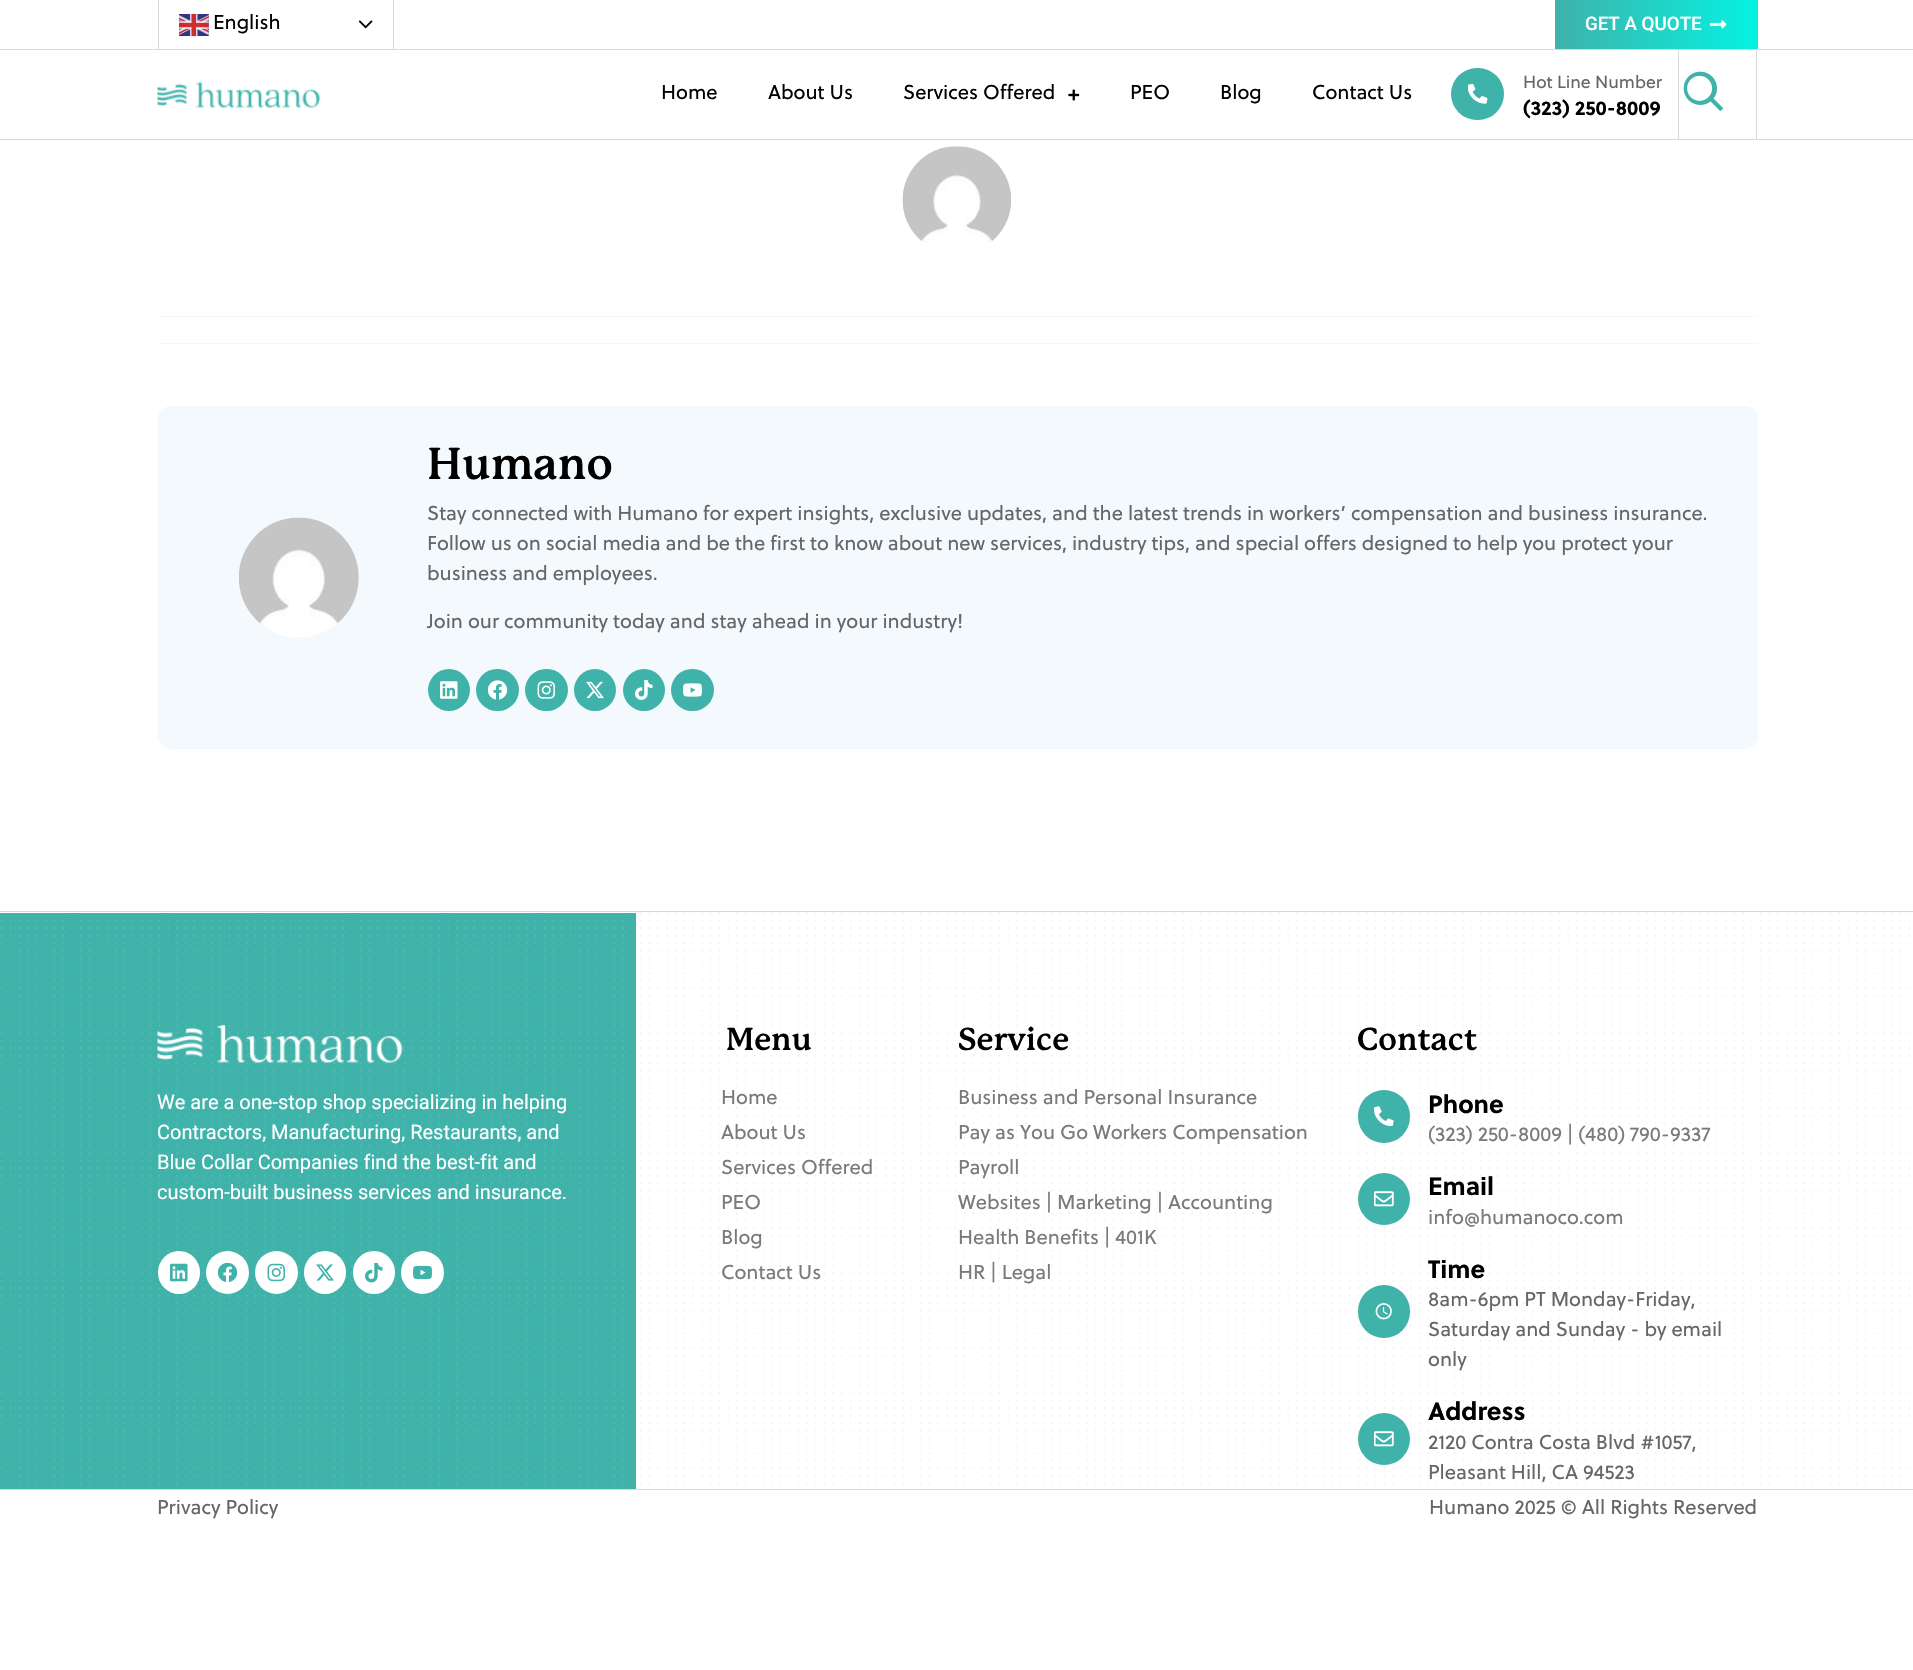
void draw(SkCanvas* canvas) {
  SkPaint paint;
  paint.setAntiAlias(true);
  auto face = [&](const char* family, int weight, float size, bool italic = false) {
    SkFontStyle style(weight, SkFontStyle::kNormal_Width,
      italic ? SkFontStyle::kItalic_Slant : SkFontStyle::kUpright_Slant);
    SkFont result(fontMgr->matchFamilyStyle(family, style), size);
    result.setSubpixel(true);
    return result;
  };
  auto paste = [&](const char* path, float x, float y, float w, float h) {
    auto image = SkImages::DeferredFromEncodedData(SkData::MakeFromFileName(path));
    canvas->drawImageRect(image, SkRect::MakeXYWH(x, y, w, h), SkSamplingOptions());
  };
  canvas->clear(0xffffffff);
  {
    const struct { float x, y, w, h; SkColor color; } items[] = {
      {0, 49, 1913, 1, 0xffd9d9d9},
      {393, 0, 1, 49, 0xffd9d9d9},
      {158, 0, 1, 49, 0xffd9d9d9},
    };
    for (auto [x, y, w, h, color] : items) {
      paint.setColor(color);
      canvas->drawRect(SkRect::MakeXYWH(x, y, w, h), paint);
    }
  }
  paste("img/1.png", 179, 13, 30, 24);
  paste("img/2.png", 359, 20, 14, 9);
  {
    const SkColor colors[] = {0xff05f2e2, 0xff3fb2aa};
    const float stops[] = {0, 1};
    const SkPoint ends[] = {{1758, 24}, {1555, 24}};
    paint.setShader(SkGradientShader::MakeLinear(ends, colors, stops, 2, SkTileMode::kClamp));
    paint.setAlpha(255);
  }
  canvas->drawRect(SkRect::MakeXYWH(1555, 0, 203, 49), paint);
  paste("img/3.png", 1709, 20, 18, 9);
  paint.setShader(nullptr);
  paint.setColor(0xffd9d9d9);
  canvas->drawRect(SkRect::MakeXYWH(0, 139, 1913, 1), paint);
  paste("img/4.png", 157, 82, 164, 26);
  paste("img/5.png", 1068, 89, 12, 12);
  paint.setColor(0xff3fb2aa);
  canvas->drawRoundRect(SkRect::MakeXYWH(1451, 68, 53, 52), 26, 26, paint);
  paste("img/6.png", 1468, 84, 20, 20);
  paint.setColor(0xffd9d9d9);
  canvas->drawRect(SkRect::MakeXYWH(1756, 50, 1, 89), paint);
  canvas->drawRect(SkRect::MakeXYWH(1678, 50, 1, 89), paint);
  paste("img/7.png", 1683, 71, 41, 41);
  paste("img/8.png", 902, 146, 109, 97);
  paint.setColor(0xfff4f6f8);
  canvas->drawRect(SkRect::MakeXYWH(158, 316, 1600, 1), paint);
  canvas->drawRect(SkRect::MakeXYWH(158, 343, 1600, 1), paint);
  paint.setColor(0xfff4f9fd);
  canvas->drawRoundRect(SkRect::MakeXYWH(158, 406, 1600, 343), 13, 13, paint);
  paste("img/9.png", 239, 517, 120, 120);
  paint.setColor(0xff3fb2aa);
  canvas->drawCircle(449, 690, 21, paint);
  paste("img/10.png", 440, 681, 18, 18);
  canvas->drawRoundRect(SkRect::MakeXYWH(476, 669, 43, 42), 21, 21, paint);
  paste("img/11.png", 488, 680, 20, 20);
  canvas->drawRoundRect(SkRect::MakeXYWH(525, 669, 43, 42), 21, 21, paint);
  paste("img/12.png", 537, 681, 18, 18);
  canvas->drawCircle(595, 690, 21, paint);
  paste("img/13.png", 586, 681, 18, 18);
  canvas->drawCircle(644, 690, 21, paint);
  paste("img/14.png", 635, 680, 18, 20);
  canvas->drawRoundRect(SkRect::MakeXYWH(671, 669, 43, 42), 21, 21, paint);
  paste("img/15.png", 683, 683, 19, 14);
  canvas->drawRect(SkRect::MakeXYWH(0, 913, 636, 576), paint);
  paste("img/16.png", 1, 912, 1909, 572);
  paint.setColor(0xffd9d9d9);
  canvas->drawRect(SkRect::MakeXYWH(0, 911, 1913, 1), paint);
  canvas->drawRect(SkRect::MakeXYWH(0, 1489, 1913, 1), paint);
  paste("img/17.png", 157, 1025, 246, 38);
  paint.setColor(0xffffffff);
  canvas->drawRoundRect(SkRect::MakeXYWH(158, 1251, 42, 43), 21, 21, paint);
  paste("img/18.png", 170, 1263, 18, 19);
  canvas->drawCircle(227.5f, 1272.5f, 21.5f, paint);
  paste("img/19.png", 218, 1263, 20, 19);
  canvas->drawCircle(276.5f, 1272.5f, 21.5f, paint);
  paste("img/20.png", 267, 1263, 18, 19);
  canvas->drawRoundRect(SkRect::MakeXYWH(304, 1251, 42, 43), 21, 21, paint);
  paste("img/21.png", 316, 1264, 18, 17);
  canvas->drawRoundRect(SkRect::MakeXYWH(353, 1251, 42, 43), 21, 21, paint);
  paste("img/22.png", 365, 1263, 18, 20);
  canvas->drawCircle(422.5f, 1272.5f, 21.5f, paint);
  paste("img/23.png", 413, 1265, 19, 15);
  paint.setColor(0xff3fb2aa);
  canvas->drawRoundRect(SkRect::MakeXYWH(1358, 1090, 52, 53), 26, 26, paint);
  paste("img/24.png", 1374, 1106, 20, 20);
  canvas->drawCircle(1384, 1199, 26, paint);
  paste("img/25.png", 1374, 1191, 20, 16);
  canvas->drawRoundRect(SkRect::MakeXYWH(1358, 1285, 52, 53), 26, 26, paint);
  paste("img/26.png", 1375, 1303, 17, 17);
  canvas->drawCircle(1384, 1439, 26, paint);
  paste("img/25.png", 1374, 1431, 20, 16);
  auto f0 = face("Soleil", 400, 20);
  paint.setColor(0xff000000);
  canvas->drawString("English", 213, 29, f0, paint);
  auto f1 = face("Roboto", 500, 18.75f);
  paint.setColor(0xffffffff);
  canvas->drawString("GET A QUOTE", 1585, 30, f1, paint);
  paint.setColor(0xff000000);
  {
    const struct { const char* s; float x, y; } items[] = {
      {"Home", 661, 99},
      {"About Us", 768, 99},
      {"Services Offered", 903, 99},
      {"PEO", 1130, 99},
      {"Blog", 1220, 99},
      {"Contact Us", 1312, 99},
    };
    for (auto [s, x, y] : items) {
      canvas->drawString(s, x, y, f0, paint);
    }
  }
  auto f2 = face("Soleil", 400, 17.5f);
  paint.setColor(0xff666666);
  canvas->drawString("Hot Line Number", 1523, 88, f2, paint);
  auto f3 = face("Soleil", 700, 20);
  paint.setColor(0xff000000);
  canvas->drawString("(323) 250-8009", 1523, 115, f3, paint);
  auto f4 = face("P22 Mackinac", 700, 43.75f);
  canvas->drawString("Humano", 427, 479, f4, paint);
  paint.setColor(0xff666666);
  {
    const struct { const char* s; float x, y; } items[] = {
      {"Stay connected with Humano for expert insights, exclusive updates, and the latest trends in workers’ compensation and business insurance.", 427, 520},
      {"Follow us on social media and be the first to know about new services, industry tips, and special offers designed to help you protect your", 427, 550},
      {"business and employees.", 427, 580},
      {"Join our community today and stay ahead in your industry!", 427, 628},
    };
    for (auto [s, x, y] : items) {
      canvas->drawString(s, x, y, f0, paint);
    }
  }
  auto f5 = face("Roboto", 400, 20);
  paint.setColor(0xffffffff);
  {
    const struct { const char* s; float x, y; } items[] = {
      {"We are a one-stop shop specializing in helping", 157, 1109},
      {"Contractors, Manufacturing, Restaurants, and", 157, 1139},
      {"Blue Collar Companies find the best-fit and", 157, 1169},
      {"custom-built business services and insurance.", 157, 1199},
    };
    for (auto [s, x, y] : items) {
      canvas->drawString(s, x, y, f5, paint);
    }
  }
  auto f6 = face("P22 Mackinac", 700, 31);
  paint.setColor(0xff000000);
  canvas->drawString("Menu", 726, 1050, f6, paint);
  paint.setColor(0xff7a7a7a);
  {
    const struct { const char* s; float x, y; } items[] = {
      {"Home", 721, 1104},
      {"About Us", 721, 1139},
      {"Services Offered", 721, 1174},
      {"PEO", 721, 1209},
      {"Blog", 721, 1244},
      {"Contact Us", 721, 1279},
    };
    for (auto [s, x, y] : items) {
      canvas->drawString(s, x, y, f0, paint);
    }
  }
  paint.setColor(0xff000000);
  canvas->drawString("Service", 958, 1050, f6, paint);
  paint.setColor(0xff7a7a7a);
  {
    const struct { const char* s; float x, y; } items[] = {
      {"Business and Personal Insurance", 958, 1104},
      {"Pay as You Go Workers Compensation", 958, 1139},
      {"Payroll", 958, 1174},
      {"Websites | Marketing | Accounting", 958, 1209},
      {"Health Benefits | 401K", 958, 1244},
      {"HR | Legal", 958, 1279},
    };
    for (auto [s, x, y] : items) {
      canvas->drawString(s, x, y, f0, paint);
    }
  }
  paint.setColor(0xff000000);
  canvas->drawString("Contact", 1357, 1050, f6, paint);
  auto f7 = face("Soleil", 700, 25);
  canvas->drawString("Phone", 1428, 1113, f7, paint);
  paint.setColor(0xff7a7a7a);
  canvas->drawString("(323) 250-8009 | (480) 790-9337", 1428, 1141, f0, paint);
  paint.setColor(0xff000000);
  canvas->drawString("Email", 1428, 1195, f7, paint);
  paint.setColor(0xff7a7a7a);
  canvas->drawString("info@humanoco.com", 1428, 1224, f0, paint);
  paint.setColor(0xff000000);
  canvas->drawString("Time", 1428, 1278, f7, paint);
  paint.setColor(0xff666666);
  {
    const struct { const char* s; float x, y; } items[] = {
      {"8am-6pm PT Monday-Friday,", 1428, 1306},
      {"Saturday and Sunday - by email", 1428, 1336},
      {"only", 1428, 1366},
    };
    for (auto [s, x, y] : items) {
      canvas->drawString(s, x, y, f0, paint);
    }
  }
  paint.setColor(0xff000000);
  canvas->drawString("Address", 1428, 1420, f7, paint);
  paint.setColor(0xff666666);
  {
    const struct { const char* s; float x, y; } items[] = {
      {"2120 Contra Costa Blvd #1057,", 1428, 1449},
      {"Pleasant Hill, CA 94523", 1428, 1479},
      {"Privacy Policy", 157, 1514},
      {"Humano 2025 © All Rights Reserved", 1429, 1514},
    };
    for (auto [s, x, y] : items) {
      canvas->drawString(s, x, y, f0, paint);
    }
  }
}
